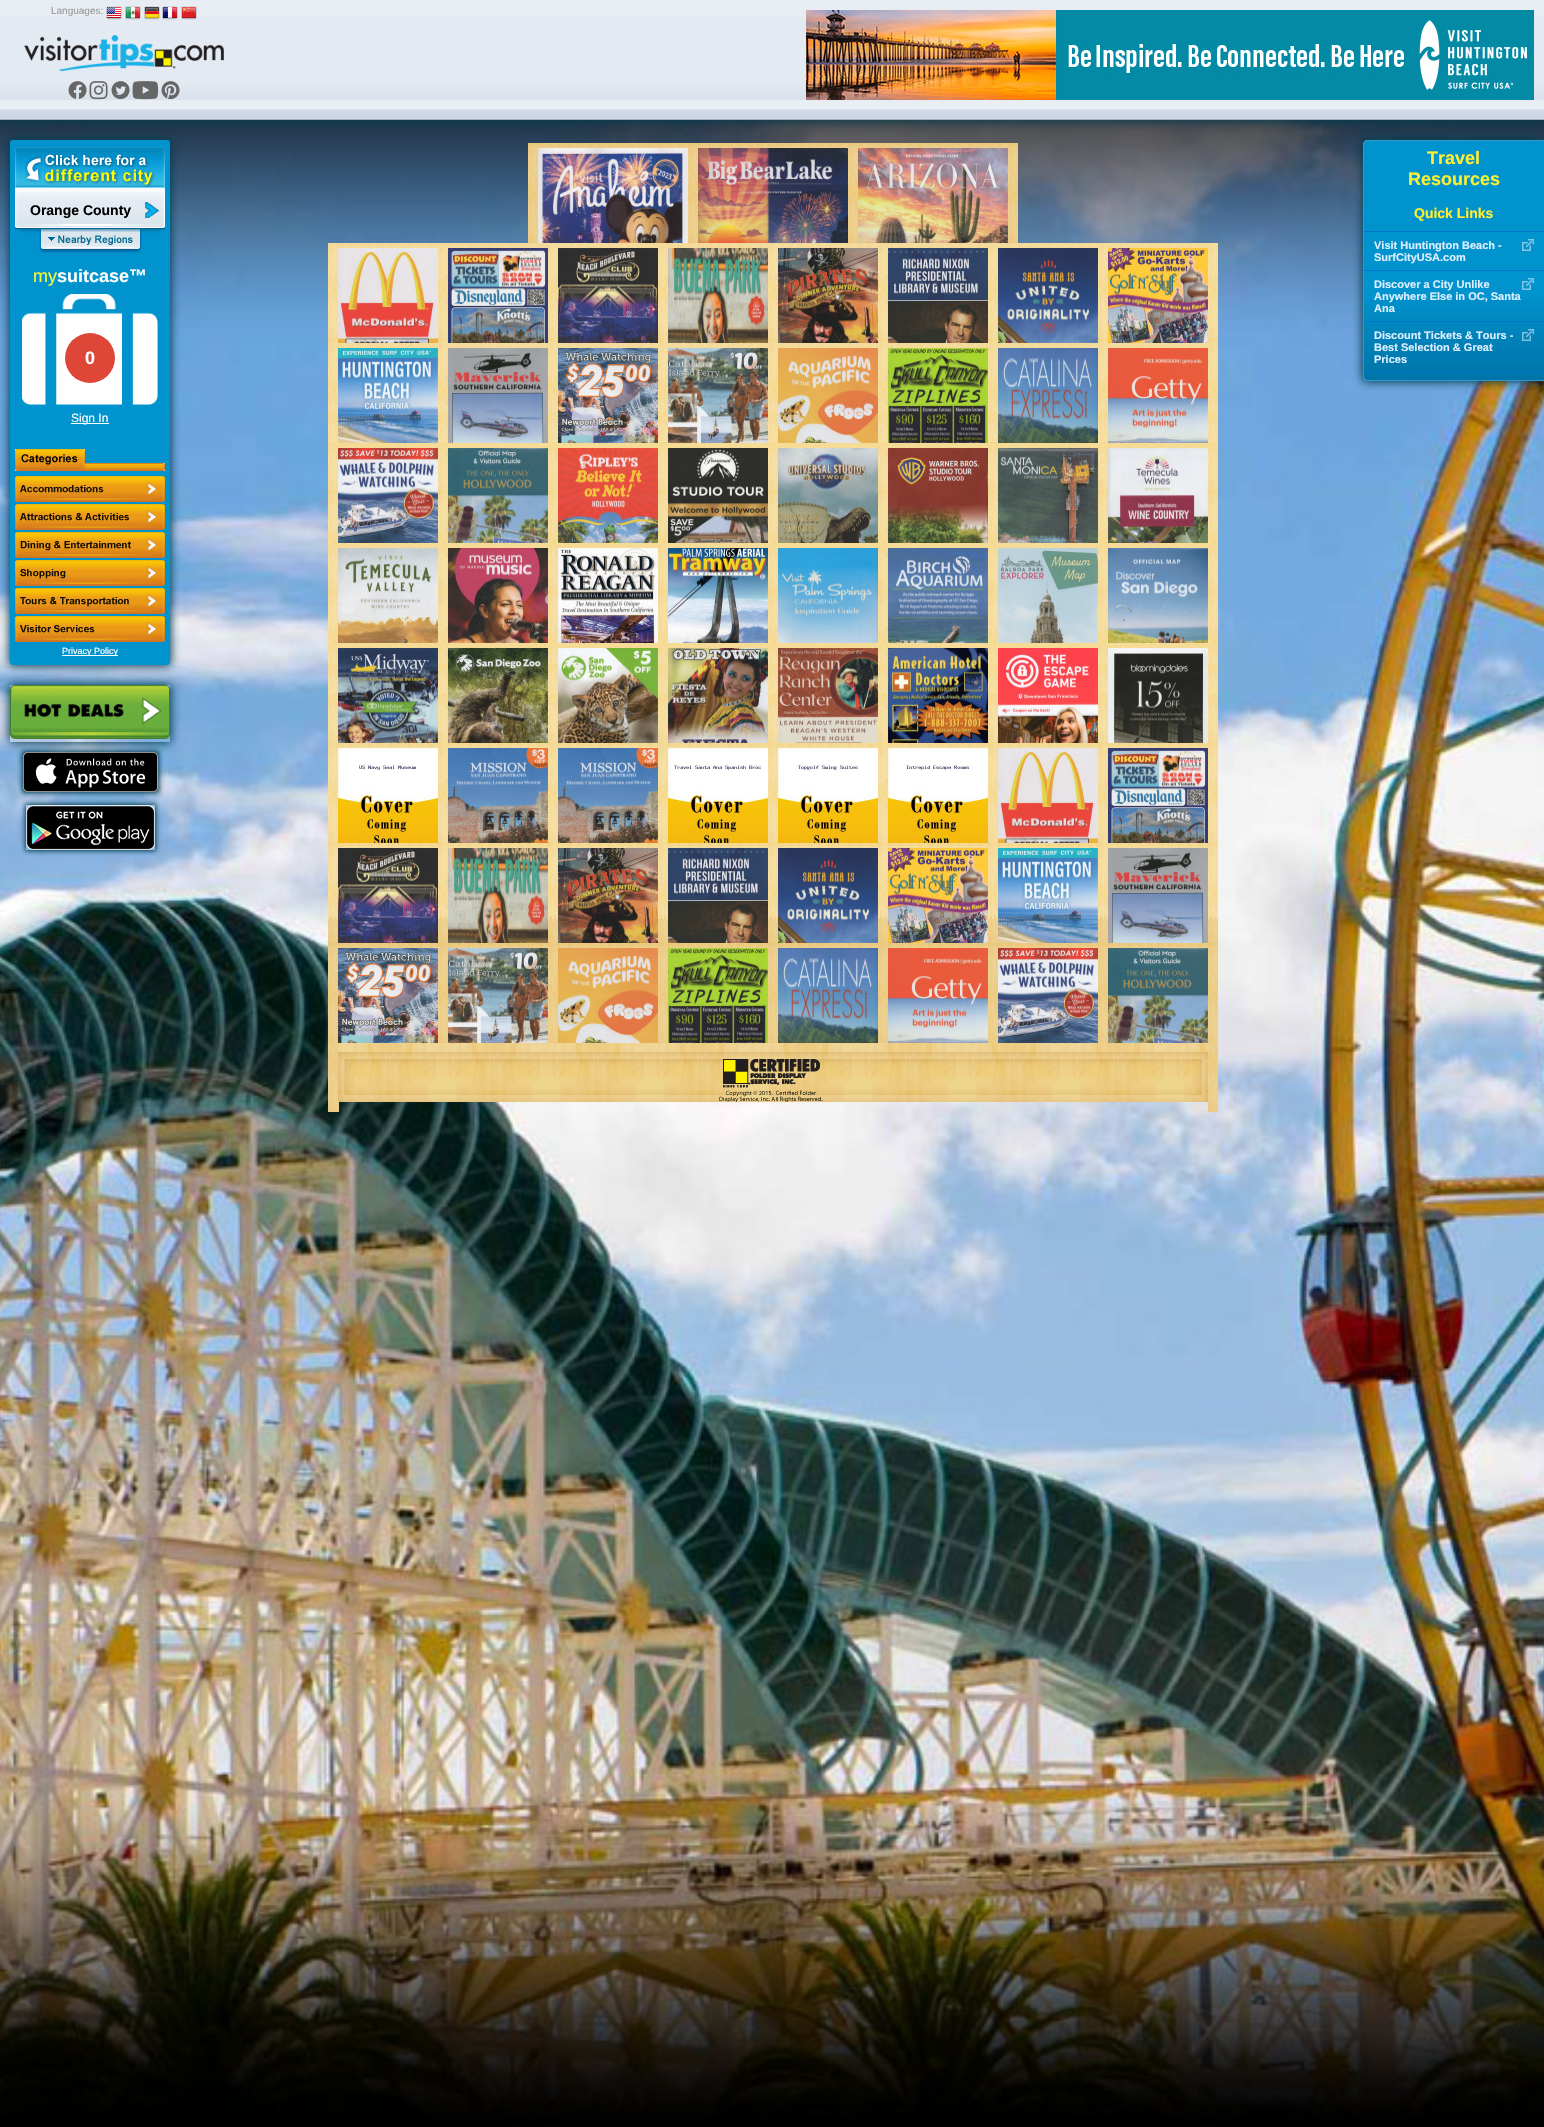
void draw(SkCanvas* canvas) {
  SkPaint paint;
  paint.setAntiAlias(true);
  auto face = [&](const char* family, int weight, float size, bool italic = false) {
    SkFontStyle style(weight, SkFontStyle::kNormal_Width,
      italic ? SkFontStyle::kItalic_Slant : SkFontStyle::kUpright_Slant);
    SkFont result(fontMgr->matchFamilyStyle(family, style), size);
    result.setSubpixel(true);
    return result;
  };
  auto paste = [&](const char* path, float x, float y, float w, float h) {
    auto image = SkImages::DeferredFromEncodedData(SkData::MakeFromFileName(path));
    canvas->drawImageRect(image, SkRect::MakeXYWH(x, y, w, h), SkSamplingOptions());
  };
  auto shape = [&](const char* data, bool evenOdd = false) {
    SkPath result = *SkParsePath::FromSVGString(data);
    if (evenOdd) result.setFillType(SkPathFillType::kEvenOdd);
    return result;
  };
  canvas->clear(0xffffffff);
  paste("img/14.png", 0, 120, 1544, 2007);
  paint.setColor(0xff003c50);
  paint.setMaskFilter(SkMaskFilter::MakeBlur(kNormal_SkBlurStyle, 5));
  canvas->drawRect(SkRect::MakeXYWH(-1, -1, 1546, 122), paint);
  paint.setMaskFilter(nullptr);
  paint.setColor(0xffe8edf3);
  canvas->drawRect(SkRect::MakeXYWH(0, 0, 1544, 17), paint);
  paste("img/1.png", 0, 17, 1544, 103);
  paste("img/2.png", 106, 6, 16, 14);
  paste("img/3.png", 125, 6, 16, 14);
  paste("img/4.png", 144, 6, 16, 14);
  paste("img/5.png", 162, 6, 16, 14);
  paste("img/6.png", 181, 6, 16, 14);
  paste("img/7.png", 806, 10, 728, 90);
  paste("img/8.png", 24, 35, 200, 36);
  paste("img/9.png", 68, 81, 19, 18);
  paste("img/10.png", 89, 81, 19, 19);
  paste("img/11.png", 111, 81, 19, 19);
  paste("img/12.png", 132, 81, 27, 19);
  paste("img/13.png", 161, 81, 19, 19);
  paint.setColor(0xff003c50);
  paint.setMaskFilter(SkMaskFilter::MakeBlur(kNormal_SkBlurStyle, 5));
  canvas->drawRoundRect(SkRect::MakeXYWH(9, 139, 162, 527), 4, 4, paint);
  paint.setMaskFilter(nullptr);
  paint.setColor(0xff0193ce);
  canvas->drawRoundRect(SkRect::MakeXYWH(11, 141, 158, 523), 2, 2, paint);
  paint.setStroke(true);
  paint.setStrokeWidth(2);
  canvas->drawRoundRect(SkRect::MakeXYWH(11, 141, 158, 523), 2, 2, paint);
  paste("img/15.png", 15, 223, 150, 5);
  paste("img/16.png", 15, 147, 150, 76);
  paste("img/17.png", 145, 202, 15, 16);
  paste("img/18.png", 17, 229, 148, 4);
  paint.setStroke(false);
  paint.setColor(0xff005e97);
  canvas->drawRect(SkRect::MakeXYWH(15, 228, 150, 1), paint);
  paste("img/19.png", 39, 229, 103, 24);
  paste("img/20.png", 22, 294, 136, 111);
  paint.setColor(0xffde4738);
  canvas->drawCircle(90, 358, 25, paint);
  paint.setColor(0xffffffff);
  canvas->drawRect(SkRect::MakeXYWH(71, 423, 38, 1), paint);
  paste("img/21.png", 15, 449, 150, 22);
  paste("img/22.png", 15, 476, 150, 26);
  paste("img/23.png", 20, 485, 84, 8);
  paste("img/22.png", 15, 504, 150, 26);
  paste("img/24.png", 20, 513, 109, 8);
  paste("img/22.png", 15, 532, 150, 26);
  paste("img/25.png", 20, 541, 111, 10);
  paste("img/22.png", 15, 560, 150, 26);
  paste("img/26.png", 20, 569, 46, 10);
  paste("img/22.png", 15, 588, 150, 26);
  paste("img/27.png", 20, 597, 109, 10);
  paste("img/22.png", 15, 616, 150, 26);
  paste("img/28.png", 20, 625, 75, 8);
  canvas->drawRect(SkRect::MakeXYWH(62, 655, 56, 1), paint);
  canvas->save();
  canvas->clipPath(shape("M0 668H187V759H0ZM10 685H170V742H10Z", true), true);
  paint.setColor(0xff003c50);
  paint.setMaskFilter(SkMaskFilter::MakeBlur(kNormal_SkBlurStyle, 5));
  canvas->drawRect(SkRect::MakeXYWH(9, 684, 162, 59), paint);
  paint.setMaskFilter(nullptr);
  canvas->restore();
  paste("img/29.png", 10, 685, 160, 54);
  paint.setMaskFilter(SkMaskFilter::MakeBlur(kNormal_SkBlurStyle, 2.5f));
  canvas->drawRect(SkRect::MakeXYWH(22, 751, 137, 42), paint);
  paint.setMaskFilter(nullptr);
  paste("img/30.png", 23, 752, 135, 40);
  canvas->save();
  canvas->clipPath(shape("M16 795H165V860H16ZM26 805H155V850H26Z", true), true);
  paint.setMaskFilter(SkMaskFilter::MakeBlur(kNormal_SkBlurStyle, 2.5f));
  canvas->drawRect(SkRect::MakeXYWH(25, 804, 131, 47), paint);
  paint.setMaskFilter(nullptr);
  canvas->restore();
  paste("img/31.png", 26, 805, 129, 45);
  paste("img/32.png", 528, 143, 490, 100);
  paste("img/33.png", 538, 148, 150, 95);
  paste("img/34.png", 698, 148, 150, 95);
  paste("img/35.png", 858, 148, 150, 95);
  paste("img/36.png", 328, 243, 890, 800);
  paste("img/37.png", 338, 248, 100, 95);
  paste("img/38.png", 448, 248, 100, 95);
  paste("img/39.png", 558, 248, 100, 95);
  paste("img/40.png", 668, 248, 100, 95);
  paste("img/41.png", 778, 248, 100, 95);
  paste("img/42.png", 888, 248, 100, 95);
  paste("img/43.png", 998, 248, 100, 95);
  paste("img/44.png", 1108, 248, 100, 95);
  paste("img/45.png", 338, 348, 100, 95);
  paste("img/46.png", 448, 348, 100, 95);
  paste("img/47.png", 558, 348, 100, 95);
  paste("img/48.png", 668, 348, 100, 95);
  paste("img/49.png", 778, 348, 100, 95);
  paste("img/50.png", 888, 348, 100, 95);
  paste("img/51.png", 998, 348, 100, 95);
  paste("img/52.png", 1108, 348, 100, 95);
  paste("img/53.png", 338, 448, 100, 95);
  paste("img/54.png", 448, 448, 100, 95);
  paste("img/55.png", 558, 448, 100, 95);
  paste("img/56.png", 668, 448, 100, 95);
  paste("img/57.png", 778, 448, 100, 95);
  paste("img/58.png", 888, 448, 100, 95);
  paste("img/59.png", 998, 448, 100, 95);
  paste("img/60.png", 1108, 448, 100, 95);
  paste("img/61.png", 338, 548, 100, 95);
  paste("img/62.png", 448, 548, 100, 95);
  paste("img/63.png", 558, 548, 100, 95);
  paste("img/64.png", 668, 548, 100, 95);
  paste("img/65.png", 778, 548, 100, 95);
  paste("img/66.png", 888, 548, 100, 95);
  paste("img/67.png", 998, 548, 100, 95);
  paste("img/68.png", 1108, 548, 100, 95);
  paste("img/69.png", 338, 648, 100, 95);
  paste("img/70.png", 448, 648, 100, 95);
  paste("img/71.png", 558, 648, 100, 95);
  paste("img/72.png", 668, 648, 100, 95);
  paste("img/73.png", 778, 648, 100, 95);
  paste("img/74.png", 888, 648, 100, 95);
  paste("img/75.png", 998, 648, 100, 95);
  paste("img/76.png", 1108, 648, 100, 95);
  paste("img/77.png", 338, 748, 100, 95);
  paste("img/78.png", 448, 748, 100, 95);
  paste("img/78.png", 558, 748, 100, 95);
  paste("img/79.png", 668, 748, 100, 95);
  paste("img/80.png", 778, 748, 100, 95);
  paste("img/81.png", 888, 748, 100, 95);
  paste("img/37.png", 998, 748, 100, 95);
  paste("img/38.png", 1108, 748, 100, 95);
  paste("img/39.png", 338, 848, 100, 95);
  paste("img/82.png", 448, 848, 100, 95);
  paste("img/41.png", 558, 848, 100, 95);
  paste("img/83.png", 668, 848, 100, 95);
  paste("img/43.png", 778, 848, 100, 95);
  paste("img/44.png", 888, 848, 100, 95);
  paste("img/45.png", 998, 848, 100, 95);
  paste("img/46.png", 1108, 848, 100, 95);
  paste("img/47.png", 338, 948, 100, 95);
  paste("img/48.png", 448, 948, 100, 95);
  paste("img/84.png", 558, 948, 100, 95);
  paste("img/50.png", 668, 948, 100, 95);
  paste("img/51.png", 778, 948, 100, 95);
  paste("img/52.png", 888, 948, 100, 95);
  paste("img/53.png", 998, 948, 100, 95);
  paste("img/54.png", 1108, 948, 100, 95);
  paste("img/85.png", 328, 1043, 11, 69);
  paste("img/86.png", 1208, 1043, 10, 69);
  paste("img/87.png", 338, 1043, 870, 59);
  paste("img/88.png", 338, 1052, 17, 50);
  paste("img/89.png", 1192, 1052, 16, 50);
  paste("img/90.png", 719, 1059, 104, 43);
  paint.setMaskFilter(SkMaskFilter::MakeBlur(kNormal_SkBlurStyle, 5));
  canvas->drawRoundRect(SkRect::MakeXYWH(1362, 139, 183, 243), 6, 6, paint);
  paint.setMaskFilter(nullptr);
  paint.setColor(0xff0193ce);
  canvas->drawPath(shape("M1368 140H1544V381H1368C1365 381 1363 379 1363 376V145C1363 142 1365 140 1368 140Z"), paint);
  paste("img/91.png", 1363, 299, 181, 81);
  paint.setColor(0xff3399cc);
  canvas->drawPath(shape("M1368 140H1544V381H1368C1365 381 1363 379 1363 376V145C1363 142 1365 140 1368 140ZM1368 141H1544V380H1368C1366 380 1364 378 1364 376V145C1364 143 1366 141 1368 141Z", true), paint);
  paint.setColor(0xff0077cc);
  canvas->drawRect(SkRect::MakeXYWH(1364, 231, 180, 1), paint);
  canvas->drawRect(SkRect::MakeXYWH(1364, 270, 180, 1), paint);
  paste("img/92.png", 1522, 239, 12, 12);
  canvas->drawRect(SkRect::MakeXYWH(1364, 321, 180, 1), paint);
  paste("img/92.png", 1522, 278, 12, 12);
  canvas->drawRect(SkRect::MakeXYWH(1364, 372, 180, 1), paint);
  paste("img/93.png", 1522, 329, 12, 12);
  auto f0 = face("Liberation Sans", 400, 10);
  paint.setColor(0xff999999);
  canvas->drawString("Languages:", 51, 14, f0, paint);
  auto f1 = face("Liberation Sans", 700, 14);
  paint.setColor(0xff000000);
  canvas->drawString("Orange County", 30, 215, f1, paint);
  auto f2 = face("Liberation Sans", 400, 18);
  paint.setColor(0xfffff835);
  canvas->drawString("my", 33, 282, f2, paint);
  auto f3 = face("Liberation Sans", 700, 18);
  paint.setColor(0xffffffff);
  canvas->drawString("suitcase™", 57, 282, f3, paint);
  canvas->drawString("0", 85, 364, f3, paint);
  auto f4 = face("Liberation Sans", 400, 12);
  canvas->drawString("Sign In", 71, 422, f4, paint);
  auto f5 = face("Liberation Sans", 400, 9);
  canvas->drawString("Privacy Policy", 62, 654, f5, paint);
  paint.setColor(0xfffeef32);
  canvas->drawString("Travel", 1427, 164, f3, paint);
  canvas->drawString("Resources", 1408, 185, f3, paint);
  canvas->drawString("Quick Links", 1414, 218, f1, paint);
  auto f6 = face("Liberation Sans", 700, 11);
  paint.setColor(0xffddf0ff);
  {
    const struct { const char* s; float x, y; } items[] = {
      {"Visit Huntington Beach -", 1374, 249},
      {"SurfCityUSA.com", 1374, 261},
      {"Discover a City Unlike", 1374, 288},
      {"Anywhere Else in OC, Santa", 1374, 300},
      {"Ana", 1374, 312},
      {"Discount Tickets & Tours -", 1374, 339},
      {"Best Selection & Great", 1374, 351},
      {"Prices", 1374, 363},
    };
    for (auto [s, x, y] : items) {
      canvas->drawString(s, x, y, f6, paint);
    }
  }
}
